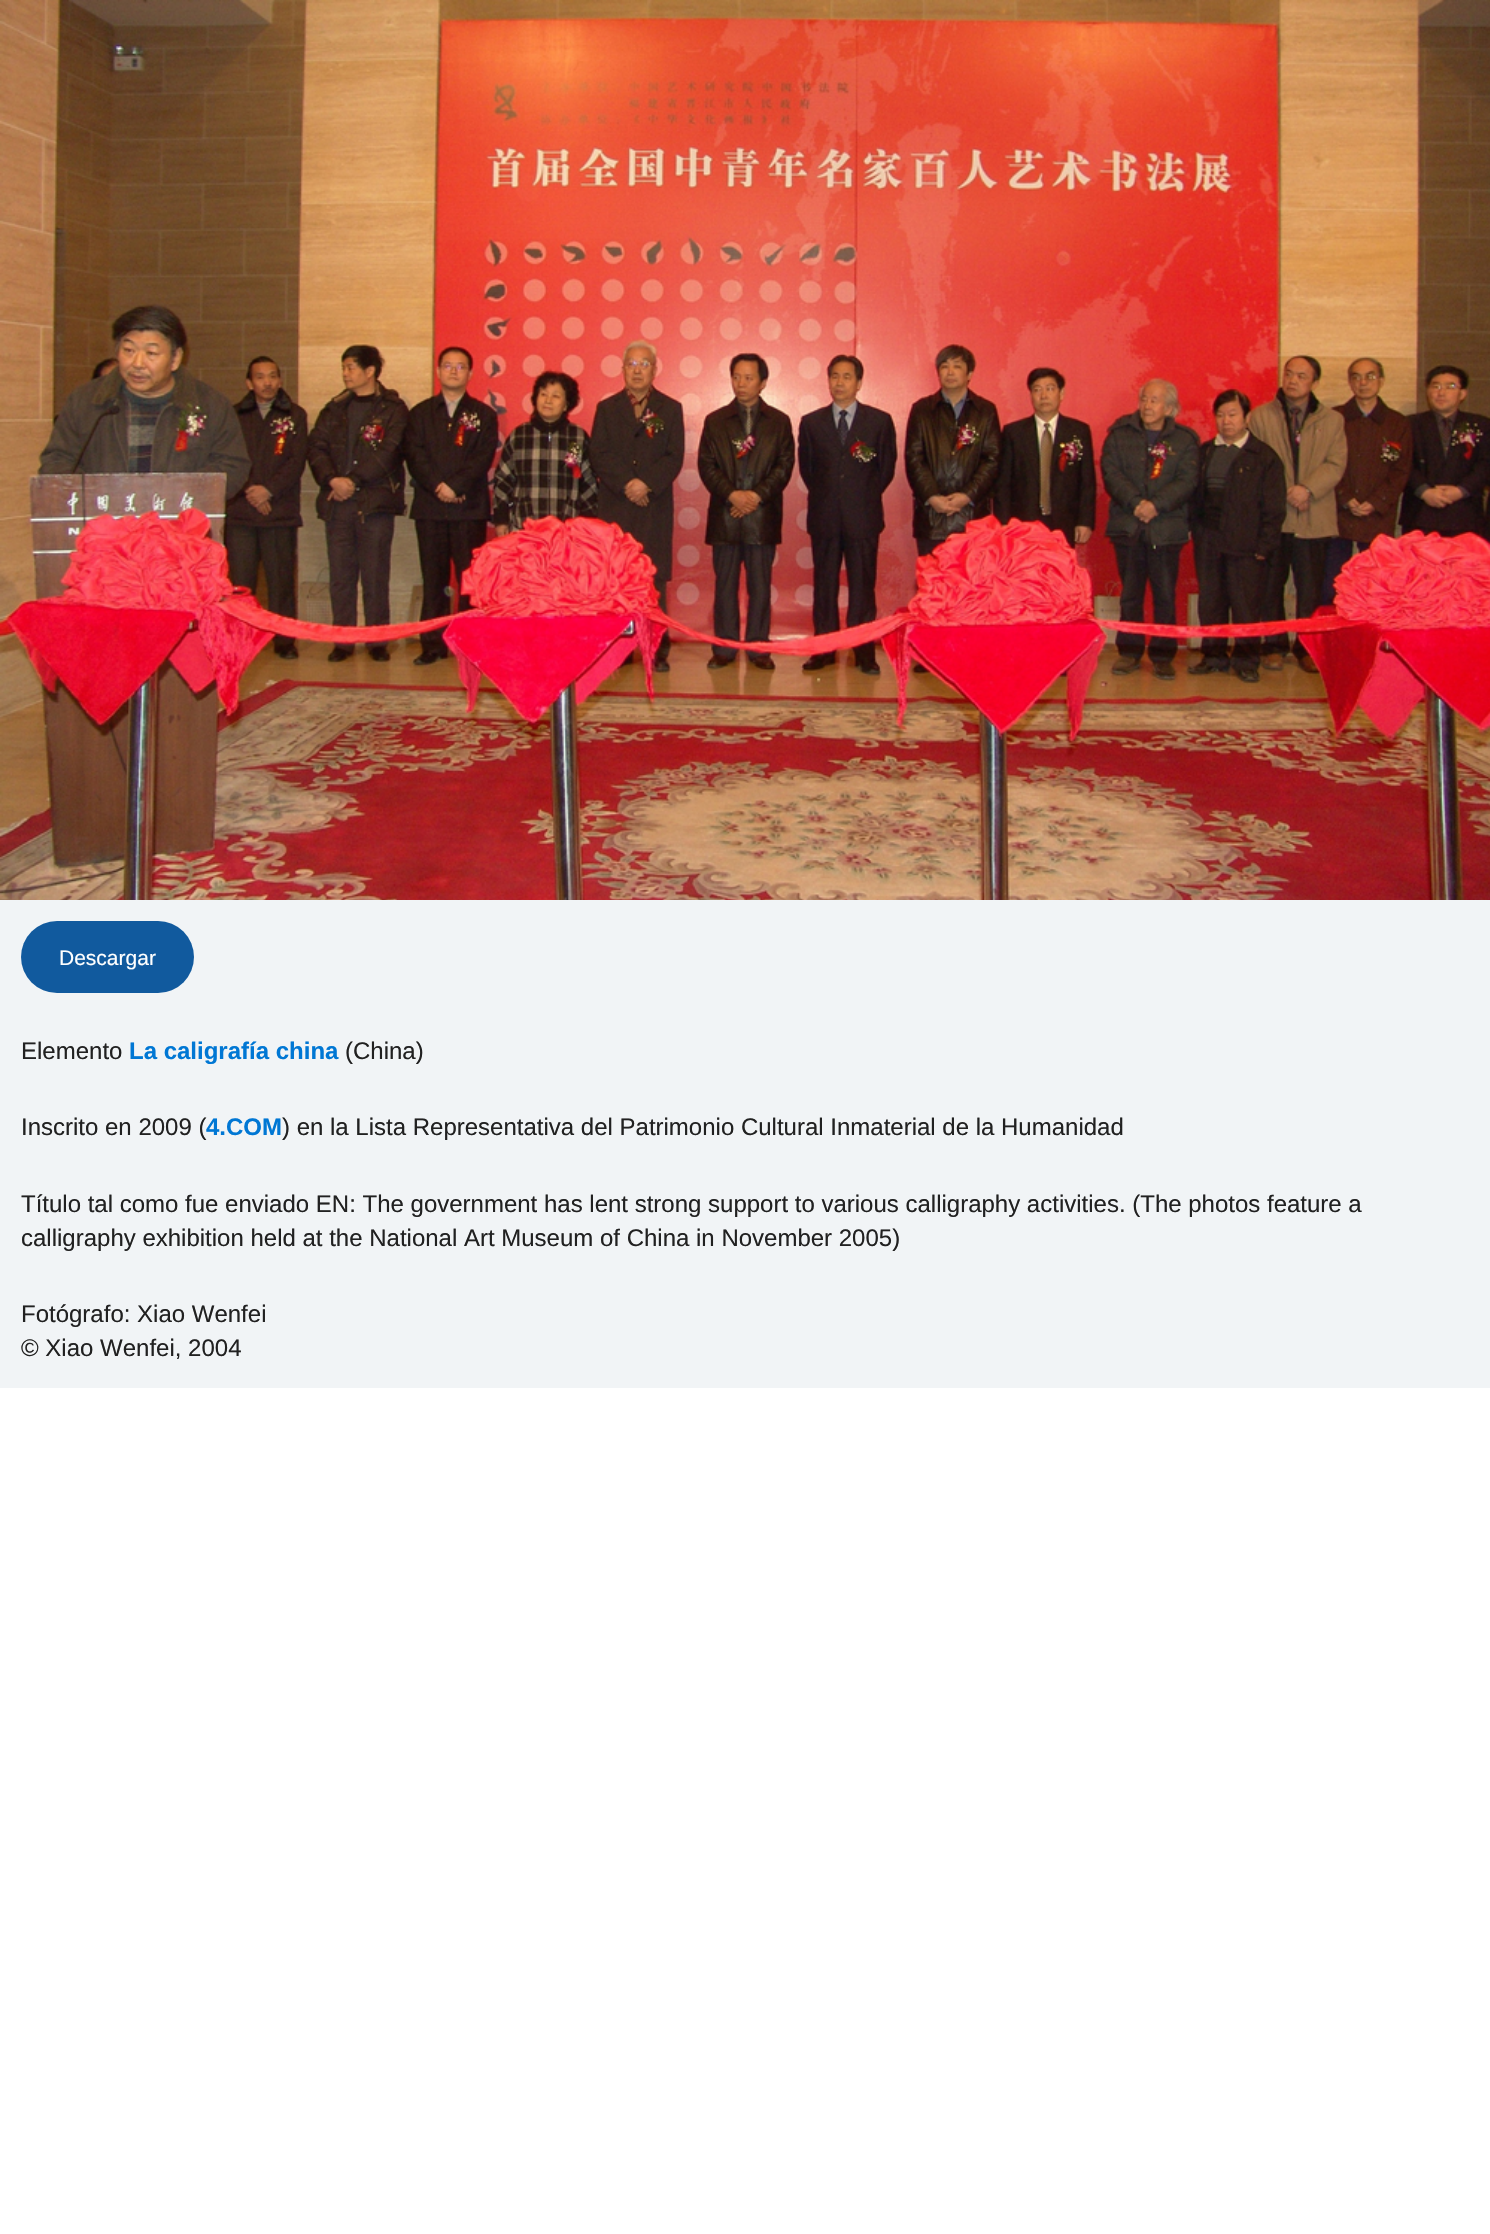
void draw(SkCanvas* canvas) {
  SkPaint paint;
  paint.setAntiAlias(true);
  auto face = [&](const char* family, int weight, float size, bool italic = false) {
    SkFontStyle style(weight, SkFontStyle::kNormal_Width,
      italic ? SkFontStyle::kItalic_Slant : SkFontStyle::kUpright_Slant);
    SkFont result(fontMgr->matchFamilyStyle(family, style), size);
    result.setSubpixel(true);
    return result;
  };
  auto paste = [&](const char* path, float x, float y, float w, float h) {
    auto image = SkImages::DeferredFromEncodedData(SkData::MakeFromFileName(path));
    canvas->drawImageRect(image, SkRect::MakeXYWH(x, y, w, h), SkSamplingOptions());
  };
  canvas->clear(0xffffffff);
  paint.setColor(0xfff1f4f6);
  canvas->drawRect(SkRect::MakeXYWH(0, 900, 1490, 488), paint);
  paste("img/1.png", 0, 0, 1490, 900);
  paint.setColor(0xff115a9e);
  canvas->drawRoundRect(SkRect::MakeXYWH(21, 921, 173, 72), 36, 36, paint);
  auto f0 = face("Liberation Sans", 400, 21);
  paint.setColor(0xffffffff);
  canvas->drawString("Descargar", 59, 965, f0, paint);
  auto f1 = face("Liberation Sans", 400, 24);
  paint.setColor(0xff212121);
  canvas->drawString("Elemento", 21, 1059, f1, paint);
  auto f2 = face("Liberation Sans", 700, 24);
  paint.setColor(0xff0077d4);
  canvas->drawString("La caligrafía china", 129, 1059, f2, paint);
  paint.setColor(0xff212121);
  canvas->drawString("(China)", 345, 1059, f1, paint);
  canvas->drawString("Inscrito en 2009 (", 21, 1135, f1, paint);
  paint.setColor(0xff0077d4);
  canvas->drawString("4.COM", 206, 1135, f2, paint);
  paint.setColor(0xff212121);
  {
    const struct { const char* s; float x, y; } items[] = {
      {") en la Lista Representativa del Patrimonio Cultural Inmaterial de la Humanidad", 282, 1135},
      {"Título tal como fue enviado EN: The government has lent strong support to various calligraphy activities. (The photos feature a", 21, 1212},
      {"calligraphy exhibition held at the National Art Museum of China in November 2005)", 21, 1246},
      {"Fotógrafo: Xiao Wenfei", 21, 1322},
      {"© Xiao Wenfei, 2004", 21, 1356},
    };
    for (auto [s, x, y] : items) {
      canvas->drawString(s, x, y, f1, paint);
    }
  }
}
